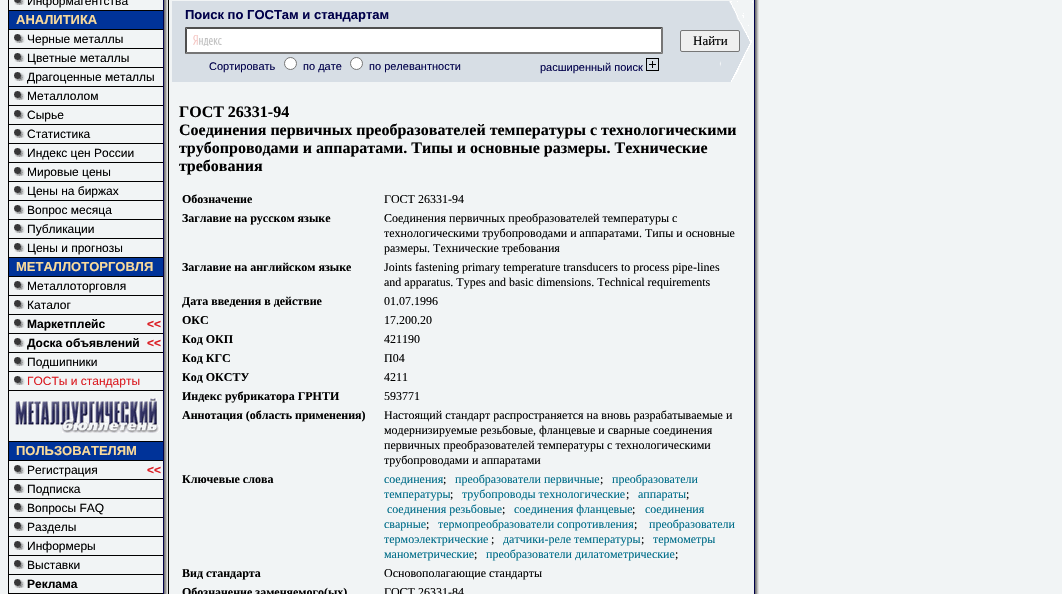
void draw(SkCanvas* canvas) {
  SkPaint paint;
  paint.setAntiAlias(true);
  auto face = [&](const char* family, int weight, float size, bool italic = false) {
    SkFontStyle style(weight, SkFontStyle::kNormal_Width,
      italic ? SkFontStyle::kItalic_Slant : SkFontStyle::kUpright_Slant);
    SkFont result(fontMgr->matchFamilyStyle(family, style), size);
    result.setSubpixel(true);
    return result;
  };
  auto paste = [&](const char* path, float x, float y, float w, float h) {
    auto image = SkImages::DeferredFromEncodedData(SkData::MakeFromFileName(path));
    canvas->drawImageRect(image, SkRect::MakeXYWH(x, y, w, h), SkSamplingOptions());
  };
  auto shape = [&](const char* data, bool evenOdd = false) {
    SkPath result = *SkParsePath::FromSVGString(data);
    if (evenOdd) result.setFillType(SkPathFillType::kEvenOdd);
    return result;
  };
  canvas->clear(0xfff1f4f5);
  paint.setColor(0xff000000);
  canvas->drawRect(SkRect::MakeXYWH(8, 0, 1, 594), paint);
  canvas->drawRect(SkRect::MakeXYWH(9, 10, 154, 1), paint);
  paste("img/1.png", 14, 0, 11, 5);
  {
    const struct { float x, y, w, h; SkColor color; } items[] = {
      {9, 11, 154, 18, 0xff003399},
      {9, 29, 154, 1, 0xff000000},
      {9, 48, 154, 1, 0xff000000},
    };
    for (auto [x, y, w, h, color] : items) {
      paint.setColor(color);
      canvas->drawRect(SkRect::MakeXYWH(x, y, w, h), paint);
    }
  }
  paste("img/2.png", 14, 34, 11, 9);
  canvas->drawRect(SkRect::MakeXYWH(9, 67, 154, 1), paint);
  paste("img/2.png", 14, 53, 11, 9);
  canvas->drawRect(SkRect::MakeXYWH(9, 86, 154, 1), paint);
  paste("img/2.png", 14, 72, 11, 9);
  canvas->drawRect(SkRect::MakeXYWH(9, 105, 154, 1), paint);
  paste("img/2.png", 14, 91, 11, 9);
  canvas->drawRect(SkRect::MakeXYWH(9, 124, 154, 1), paint);
  paste("img/2.png", 14, 110, 11, 9);
  canvas->drawRect(SkRect::MakeXYWH(9, 143, 154, 1), paint);
  paste("img/2.png", 14, 129, 11, 9);
  canvas->drawRect(SkRect::MakeXYWH(9, 162, 154, 1), paint);
  paste("img/2.png", 14, 148, 11, 9);
  canvas->drawRect(SkRect::MakeXYWH(9, 181, 154, 1), paint);
  paste("img/2.png", 14, 167, 11, 9);
  canvas->drawRect(SkRect::MakeXYWH(9, 200, 154, 1), paint);
  paste("img/2.png", 14, 186, 11, 9);
  canvas->drawRect(SkRect::MakeXYWH(9, 219, 154, 1), paint);
  paste("img/2.png", 14, 205, 11, 9);
  canvas->drawRect(SkRect::MakeXYWH(9, 238, 154, 1), paint);
  paste("img/2.png", 14, 224, 11, 9);
  canvas->drawRect(SkRect::MakeXYWH(9, 257, 154, 1), paint);
  paste("img/2.png", 14, 243, 11, 9);
  {
    const struct { float x, y, w, h; SkColor color; } items[] = {
      {9, 258, 154, 18, 0xff003399},
      {9, 276, 154, 1, 0xff000000},
      {9, 295, 154, 1, 0xff000000},
    };
    for (auto [x, y, w, h, color] : items) {
      paint.setColor(color);
      canvas->drawRect(SkRect::MakeXYWH(x, y, w, h), paint);
    }
  }
  paste("img/2.png", 14, 281, 11, 9);
  canvas->drawRect(SkRect::MakeXYWH(9, 314, 154, 1), paint);
  paste("img/2.png", 14, 300, 11, 9);
  canvas->drawRect(SkRect::MakeXYWH(9, 333, 154, 1), paint);
  paste("img/2.png", 14, 319, 11, 9);
  canvas->drawRect(SkRect::MakeXYWH(9, 352, 154, 1), paint);
  paste("img/2.png", 14, 338, 11, 9);
  canvas->drawRect(SkRect::MakeXYWH(9, 371, 154, 1), paint);
  paste("img/2.png", 14, 357, 11, 9);
  canvas->drawRect(SkRect::MakeXYWH(9, 390, 154, 1), paint);
  paste("img/2.png", 14, 376, 11, 9);
  canvas->drawRect(SkRect::MakeXYWH(9, 441, 154, 1), paint);
  paste("img/3.png", 15, 398, 145, 35);
  {
    const struct { float x, y, w, h; SkColor color; } items[] = {
      {9, 442, 154, 18, 0xff003399},
      {9, 460, 154, 1, 0xff000000},
      {9, 479, 154, 1, 0xff000000},
    };
    for (auto [x, y, w, h, color] : items) {
      paint.setColor(color);
      canvas->drawRect(SkRect::MakeXYWH(x, y, w, h), paint);
    }
  }
  paste("img/2.png", 14, 465, 11, 9);
  canvas->drawRect(SkRect::MakeXYWH(9, 498, 154, 1), paint);
  paste("img/2.png", 14, 484, 11, 9);
  canvas->drawRect(SkRect::MakeXYWH(9, 517, 154, 1), paint);
  paste("img/2.png", 14, 503, 11, 9);
  canvas->drawRect(SkRect::MakeXYWH(9, 536, 154, 1), paint);
  paste("img/2.png", 14, 522, 11, 9);
  canvas->drawRect(SkRect::MakeXYWH(9, 555, 154, 1), paint);
  paste("img/2.png", 14, 541, 11, 9);
  canvas->drawRect(SkRect::MakeXYWH(9, 574, 154, 1), paint);
  paste("img/2.png", 14, 560, 11, 9);
  canvas->drawRect(SkRect::MakeXYWH(9, 593, 154, 1), paint);
  paste("img/2.png", 14, 579, 11, 9);
  paste("img/4.png", 163, 0, 5, 594);
  {
    const struct { float x, y, w, h; SkColor color; } items[] = {
      {168, 0, 1, 594, 0xff000000},
      {172, 1, 491, 81, 0xffd7dee5},
      {185, 27, 478, 27, 0xffffffff},
    };
    for (auto [x, y, w, h, color] : items) {
      paint.setColor(color);
      canvas->drawRect(SkRect::MakeXYWH(x, y, w, h), paint);
    }
  }
  paste("img/5.png", 193, 35, 29, 11);
  paint.setColor(0xff4f4f4f);
  canvas->drawPath(shape("M185 27H663L661 29H187Z"), paint);
  paint.setColor(0xff767676);
  canvas->drawPath(shape("M663 27V54L661 52V29Z"), paint);
  canvas->drawPath(shape("M663 54H185L187 52H661Z"), paint);
  paint.setColor(0xff4f4f4f);
  canvas->drawPath(shape("M185 54V27L187 29V52Z"), paint);
  paint.setColor(0xffffffff);
  canvas->drawCircle(290.5f, 63.5f, 6, paint);
  paint.setStroke(true);
  paint.setStrokeWidth(1);
  paint.setColor(0xff767676);
  canvas->drawCircle(290.5f, 63.5f, 6, paint);
  paint.setStroke(false);
  paint.setColor(0xffffffff);
  canvas->drawCircle(356.5f, 63.5f, 6, paint);
  paint.setStroke(true);
  paint.setColor(0xff767676);
  canvas->drawCircle(356.5f, 63.5f, 6, paint);
  paste("img/6.png", 646, 58, 13, 13);
  paste("img/7.png", 663, 1, 90, 81);
  paint.setStroke(false);
  paint.setColor(0xffefefef);
  canvas->drawRoundRect(SkRect::MakeXYWH(680.5f, 30.5f, 59, 21), 1.5f, 1.5f, paint);
  paint.setStroke(true);
  paint.setColor(0xff767676);
  canvas->drawRoundRect(SkRect::MakeXYWH(680.5f, 30.5f, 59, 21), 1.5f, 1.5f, paint);
  paste("img/4.png", 754, 0, 5, 594);
  auto f0 = face("Liberation Sans", 400, 12);
  paint.setStroke(false);
  paint.setColor(0xff000000);
  canvas->drawString("Информагентства", 27, 5, f0, paint);
  auto f1 = face("Liberation Sans", 700, 13);
  paint.setColor(0xfff9da9b);
  canvas->drawString("АНАЛИТИКА", 16, 24, f1, paint);
  paint.setColor(0xff000000);
  {
    const struct { const char* s; float x, y; } items[] = {
      {"Черные металлы", 27, 43},
      {"Цветные металлы", 27, 62},
      {"Драгоценные металлы", 27, 81},
      {"Металлолом", 27, 100},
      {"Сырье", 27, 119},
      {"Статистика", 27, 138},
      {"Индекс цен России", 27, 157},
      {"Мировые цены", 27, 176},
      {"Цены на биржах", 27, 195},
      {"Вопрос месяца", 27, 214},
      {"Публикации", 27, 233},
      {"Цены и прогнозы", 27, 252},
    };
    for (auto [s, x, y] : items) {
      canvas->drawString(s, x, y, f0, paint);
    }
  }
  paint.setColor(0xfff9da9b);
  canvas->drawString("МЕТАЛЛОТОРГОВЛЯ", 16, 271, f1, paint);
  paint.setColor(0xff000000);
  canvas->drawString("Металлоторговля", 27, 290, f0, paint);
  canvas->drawString("Каталог", 27, 309, f0, paint);
  auto f2 = face("Liberation Sans", 700, 12);
  canvas->drawString("Маркетплейс", 27, 328, f2, paint);
  paint.setColor(0xffdb1d23);
  canvas->drawString("<<", 147, 328, f2, paint);
  paint.setColor(0xff000000);
  canvas->drawString("Доска объявлений", 27, 347, f2, paint);
  paint.setColor(0xffdb1d23);
  canvas->drawString("<<", 147, 347, f2, paint);
  paint.setColor(0xff000000);
  canvas->drawString("Подшипники", 27, 366, f0, paint);
  paint.setColor(0xffdb1d23);
  canvas->drawString("ГОСТы и стандарты", 27, 385, f0, paint);
  paint.setColor(0xfff9da9b);
  canvas->drawString("ПОЛЬЗОВАТЕЛЯМ", 16, 455, f1, paint);
  paint.setColor(0xff000000);
  canvas->drawString("Регистрация", 27, 474, f0, paint);
  paint.setColor(0xffdb1d23);
  canvas->drawString("<<", 147, 474, f2, paint);
  paint.setColor(0xff000000);
  {
    const struct { const char* s; float x, y; } items[] = {
      {"Подписка", 27, 493},
      {"Вопросы FAQ", 27, 512},
      {"Разделы", 27, 531},
      {"Информеры", 27, 550},
      {"Выставки", 27, 569},
    };
    for (auto [s, x, y] : items) {
      canvas->drawString(s, x, y, f0, paint);
    }
  }
  canvas->drawString("Реклама", 27, 588, f2, paint);
  paint.setColor(0xff00004a);
  canvas->drawString("Поиск по ГОСТам и стандартам", 185, 19, f1, paint);
  auto f3 = face("Liberation Sans", 400, 11);
  {
    const struct { const char* s; float x, y; } items[] = {
      {"Сортировать", 209, 70},
      {"по дате", 303, 70},
      {"по релевантности", 369, 70},
      {"расширенный поиск", 540, 71},
    };
    for (auto [s, x, y] : items) {
      canvas->drawString(s, x, y, f3, paint);
    }
  }
  auto f4 = face("Liberation Serif", 400, 13);
  paint.setColor(0xff000000);
  canvas->drawString("Найти", 693, 45, f4, paint);
  auto f5 = face("Liberation Serif", 700, 16);
  {
    const struct { const char* s; float x, y; } items[] = {
      {"ГОСТ 26331-94", 179, 117},
      {"Соединения первичных преобразователей температуры с технологическими", 179, 135},
      {"трубопроводами и аппаратами. Типы и основные размеры. Технические", 179, 153},
      {"требования", 179, 171},
    };
    for (auto [s, x, y] : items) {
      canvas->drawString(s, x, y, f5, paint);
    }
  }
  auto f6 = face("Liberation Serif", 700, 12);
  canvas->drawString("Обозначение", 182, 203, f6, paint);
  auto f7 = face("Liberation Serif", 400, 12);
  canvas->drawString("ГОСТ 26331-94", 384, 203, f7, paint);
  canvas->drawString("Заглавие на русском языке", 182, 222, f6, paint);
  {
    const struct { const char* s; float x, y; } items[] = {
      {"Соединения первичных преобразователей температуры с", 384, 222},
      {"технологическими трубопроводами и аппаратами. Типы и основные", 384, 237},
      {"размеры. Технические требования", 384, 252},
    };
    for (auto [s, x, y] : items) {
      canvas->drawString(s, x, y, f7, paint);
    }
  }
  canvas->drawString("Заглавие на английском языке", 182, 271, f6, paint);
  canvas->drawString("Joints fastening primary temperature transducers to process pipe-lines", 384, 271, f7, paint);
  canvas->drawString("and apparatus. Types and basic dimensions. Technical requirements", 384, 286, f7, paint);
  canvas->drawString("Дата введения в действие", 182, 305, f6, paint);
  canvas->drawString("01.07.1996", 384, 305, f7, paint);
  canvas->drawString("ОКС", 182, 324, f6, paint);
  canvas->drawString("17.200.20", 384, 324, f7, paint);
  canvas->drawString("Код ОКП", 182, 343, f6, paint);
  canvas->drawString("421190", 384, 343, f7, paint);
  canvas->drawString("Код КГС", 182, 362, f6, paint);
  canvas->drawString("П04", 384, 362, f7, paint);
  canvas->drawString("Код ОКСТУ", 182, 381, f6, paint);
  canvas->drawString("4211", 384, 381, f7, paint);
  canvas->drawString("Индекс рубрикатора ГРНТИ", 182, 400, f6, paint);
  canvas->drawString("593771", 384, 400, f7, paint);
  canvas->drawString("Аннотация (область применения)", 182, 419, f6, paint);
  {
    const struct { const char* s; float x, y; } items[] = {
      {"Настоящий стандарт распространяется на вновь разрабатываемые и", 384, 419},
      {"модернизируемые резьбовые, фланцевые и сварные соединения", 384, 434},
      {"первичных преобразователей температуры с технологическими", 384, 449},
      {"трубопроводами и аппаратами", 384, 464},
    };
    for (auto [s, x, y] : items) {
      canvas->drawString(s, x, y, f7, paint);
    }
  }
  canvas->drawString("Ключевые слова", 182, 483, f6, paint);
  paint.setColor(0xff006d89);
  canvas->drawString("соединения", 384, 483, f7, paint);
  paint.setColor(0xff000000);
  canvas->drawString(";", 443, 483, f7, paint);
  paint.setColor(0xff006d89);
  canvas->drawString("преобразователи первичные", 455, 483, f7, paint);
  paint.setColor(0xff000000);
  canvas->drawString(";", 600, 483, f7, paint);
  paint.setColor(0xff006d89);
  canvas->drawString("преобразователи", 612, 483, f7, paint);
  canvas->drawString("температуры", 384, 498, f7, paint);
  paint.setColor(0xff000000);
  canvas->drawString(";", 450, 498, f7, paint);
  paint.setColor(0xff006d89);
  canvas->drawString("трубопроводы технологические", 462, 498, f7, paint);
  paint.setColor(0xff000000);
  canvas->drawString(";", 626, 498, f7, paint);
  paint.setColor(0xff006d89);
  canvas->drawString("аппараты", 638, 498, f7, paint);
  paint.setColor(0xff000000);
  canvas->drawString(";", 686, 498, f7, paint);
  paint.setColor(0xff006d89);
  canvas->drawString("соединения резьбовые", 387, 513, f7, paint);
  paint.setColor(0xff000000);
  canvas->drawString(";", 502, 513, f7, paint);
  paint.setColor(0xff006d89);
  canvas->drawString("соединения фланцевые", 514, 513, f7, paint);
  paint.setColor(0xff000000);
  canvas->drawString(";", 632, 513, f7, paint);
  paint.setColor(0xff006d89);
  canvas->drawString("соединения", 645, 513, f7, paint);
  canvas->drawString("сварные", 384, 528, f7, paint);
  paint.setColor(0xff000000);
  canvas->drawString(";", 426, 528, f7, paint);
  paint.setColor(0xff006d89);
  canvas->drawString("термопреобразователи сопротивления", 438, 528, f7, paint);
  paint.setColor(0xff000000);
  canvas->drawString(";", 634, 528, f7, paint);
  paint.setColor(0xff006d89);
  canvas->drawString("преобразователи", 649, 528, f7, paint);
  canvas->drawString("термоэлектрические", 384, 543, f7, paint);
  paint.setColor(0xff000000);
  canvas->drawString(";", 491, 543, f7, paint);
  paint.setColor(0xff006d89);
  canvas->drawString("датчики-реле температуры", 503, 543, f7, paint);
  paint.setColor(0xff000000);
  canvas->drawString(";", 641, 543, f7, paint);
  paint.setColor(0xff006d89);
  canvas->drawString("термометры", 653, 543, f7, paint);
  canvas->drawString("манометрические", 384, 558, f7, paint);
  paint.setColor(0xff000000);
  canvas->drawString(";", 474, 558, f7, paint);
  paint.setColor(0xff006d89);
  canvas->drawString("преобразователи дилатометрические", 486, 558, f7, paint);
  paint.setColor(0xff000000);
  canvas->drawString(";", 675, 558, f7, paint);
  canvas->drawString("Вид стандарта", 182, 577, f6, paint);
  canvas->drawString("Основополагающие стандарты", 384, 577, f7, paint);
  canvas->drawString("Обозначение заменяемого(ых)", 182, 596, f6, paint);
  canvas->drawString("ГОСТ 26331-84", 384, 596, f7, paint);
}
